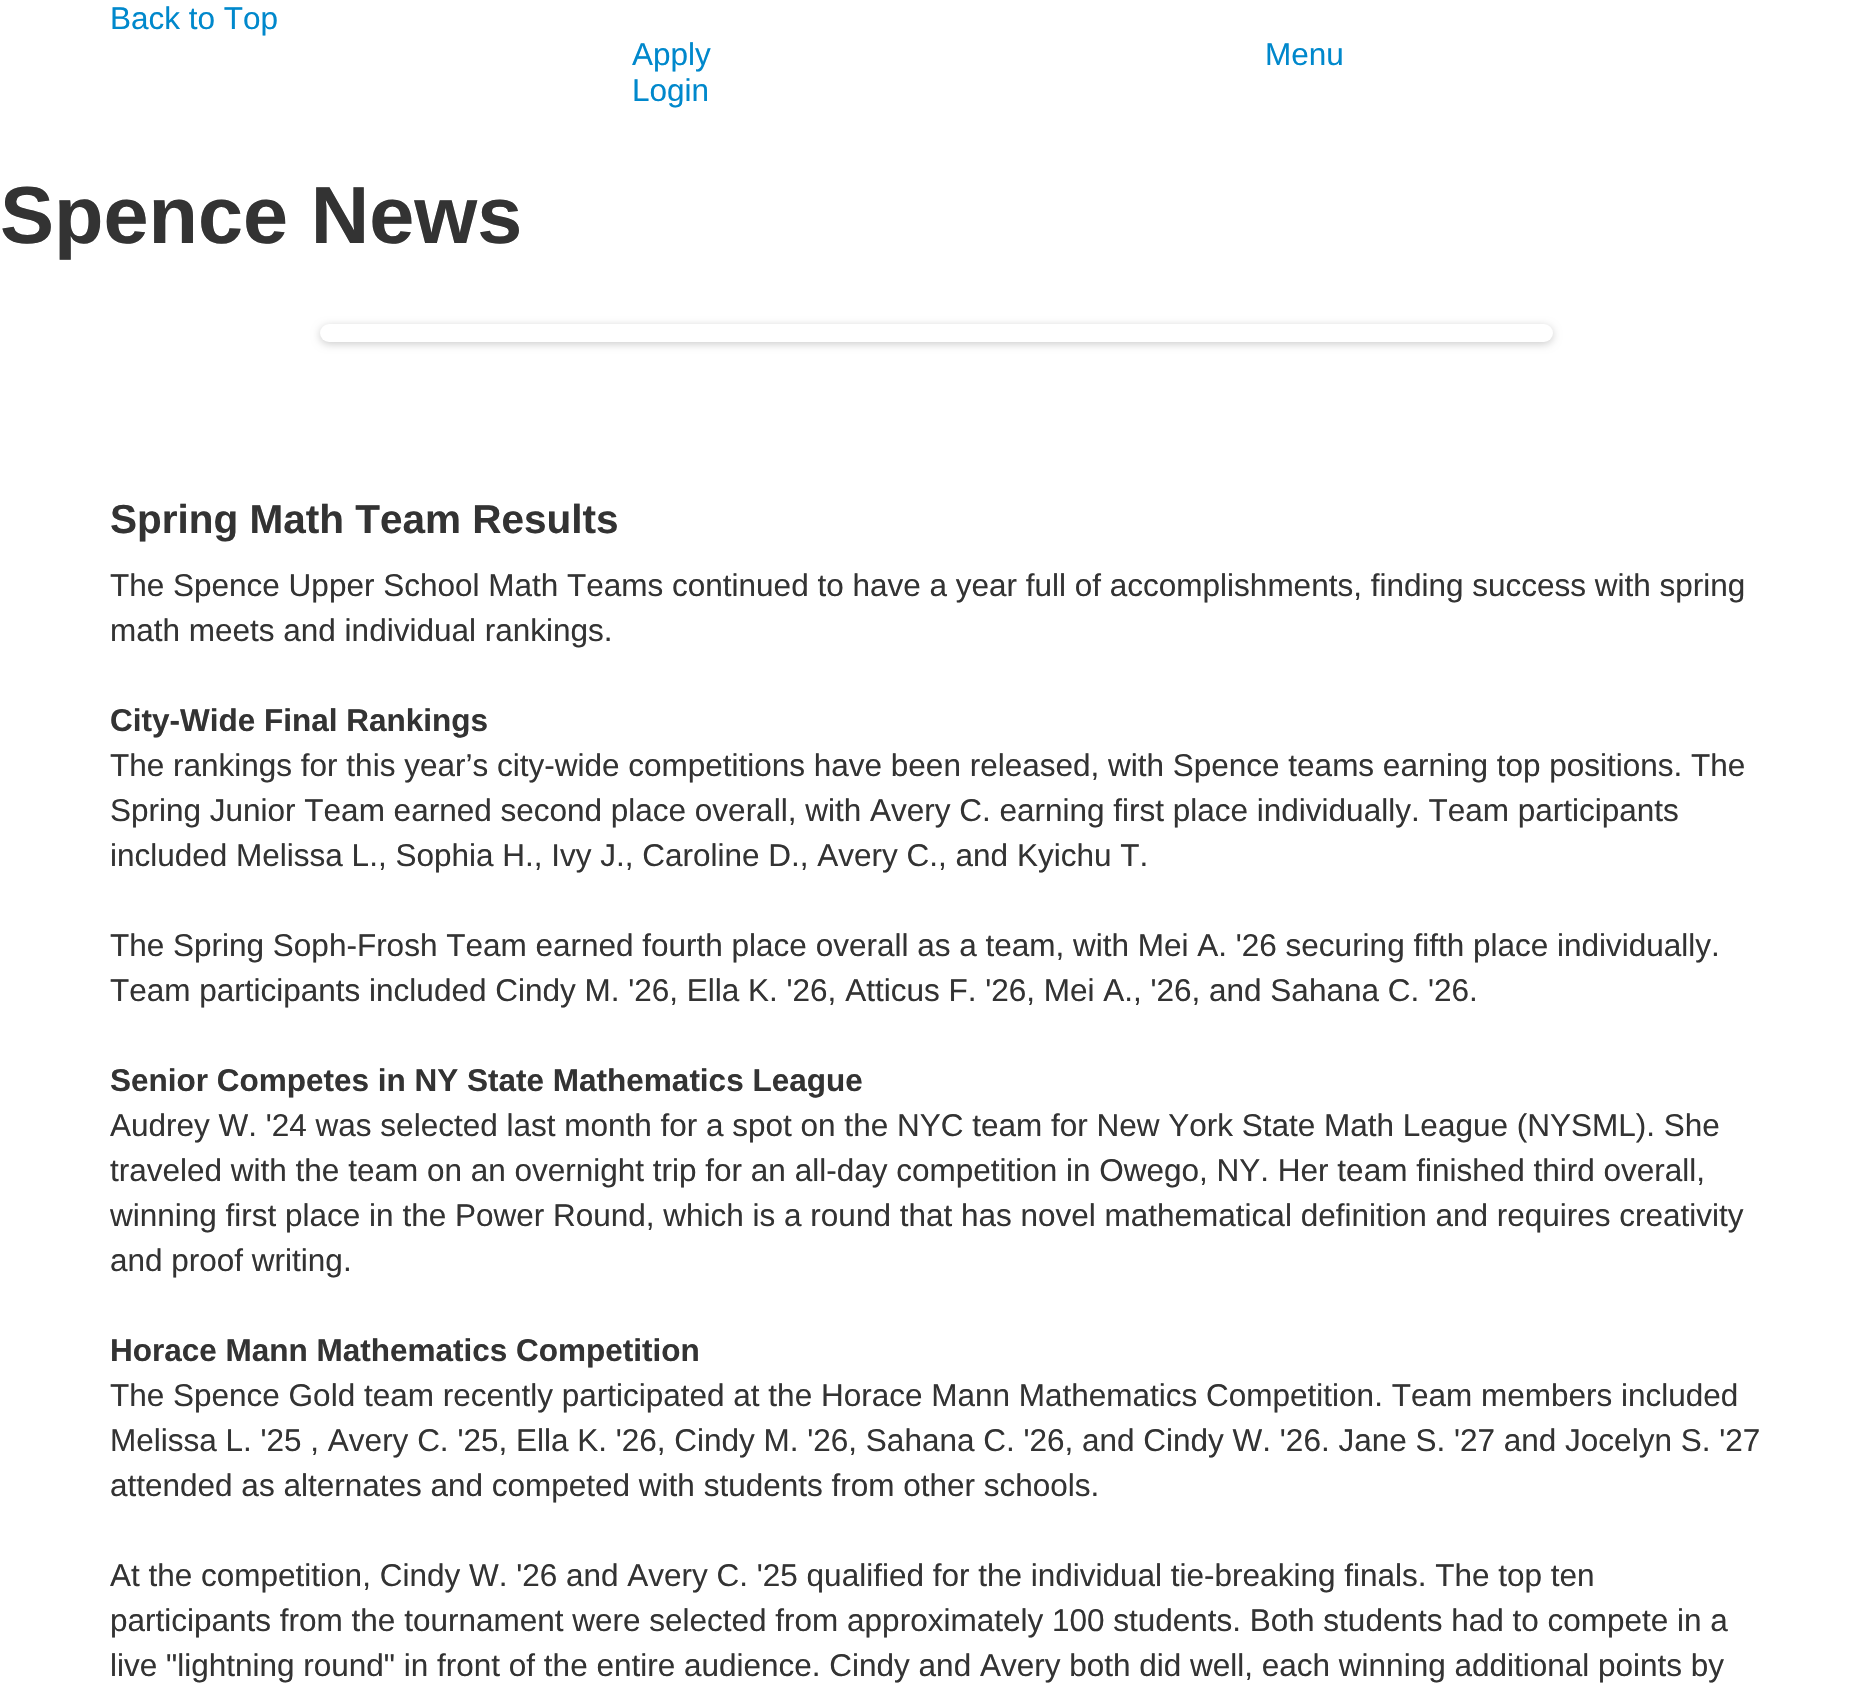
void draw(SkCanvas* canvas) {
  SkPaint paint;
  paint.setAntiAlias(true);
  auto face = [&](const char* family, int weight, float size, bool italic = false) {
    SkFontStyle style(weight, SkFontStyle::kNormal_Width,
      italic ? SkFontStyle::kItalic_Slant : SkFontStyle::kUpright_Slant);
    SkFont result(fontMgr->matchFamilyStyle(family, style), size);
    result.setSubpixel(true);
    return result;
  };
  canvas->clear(0xffffffff);
  paint.setColor(0x33000000);
  paint.setMaskFilter(SkMaskFilter::MakeBlur(kNormal_SkBlurStyle, 4.5f));
  canvas->drawRoundRect(SkRect::MakeXYWH(320, 326, 1233, 18), 9, 9, paint);
  paint.setMaskFilter(nullptr);
  paint.setColor(0xffffffff);
  canvas->drawRoundRect(SkRect::MakeXYWH(320, 324, 1233, 18), 9, 9, paint);
  auto f0 = face("Liberation Sans", 400, 31.5f);
  paint.setColor(0xff0088cc);
  {
    const struct { const char* s; float x, y; } items[] = {
      {"Back to Top", 110, 29},
      {"Apply", 632, 65},
      {"Login", 632, 101},
      {"Menu", 1265, 65},
    };
    for (auto [s, x, y] : items) {
      canvas->drawString(s, x, y, f0, paint);
    }
  }
  auto f1 = face("Liberation Sans", 700, 81);
  paint.setColor(0xff333333);
  canvas->drawString("Spence News", 0, 243, f1, paint);
  auto f2 = face("Liberation Sans", 700, 40.5f);
  canvas->drawString("Spring Math Team Results", 110, 533, f2, paint);
  canvas->drawString("The Spence Upper School Math Teams continued to have a year full of accomplishments, finding success with spring", 110, 596, f0, paint);
  canvas->drawString("math meets and individual rankings.", 110, 641, f0, paint);
  auto f3 = face("Liberation Sans", 700, 31.5f);
  canvas->drawString("City-Wide Final Rankings", 110, 731, f3, paint);
  {
    const struct { const char* s; float x, y; } items[] = {
      {"The rankings for this year’s city-wide competitions have been released, with Spence teams earning top positions. The", 110, 776},
      {"Spring Junior Team earned second place overall, with Avery C. earning first place individually. Team participants", 110, 821},
      {"included Melissa L., Sophia H., Ivy J., Caroline D., Avery C., and Kyichu T.", 110, 866},
      {"The Spring Soph-Frosh Team earned fourth place overall as a team, with Mei A. '26 securing fifth place individually.", 110, 956},
      {"Team participants included Cindy M. '26, Ella K. '26, Atticus F. '26, Mei A., '26, and Sahana C. '26.", 110, 1001},
    };
    for (auto [s, x, y] : items) {
      canvas->drawString(s, x, y, f0, paint);
    }
  }
  canvas->drawString("Senior Competes in NY State Mathematics League", 110, 1091, f3, paint);
  {
    const struct { const char* s; float x, y; } items[] = {
      {"Audrey W. '24 was selected last month for a spot on the NYC team for New York State Math League (NYSML). She", 110, 1136},
      {"traveled with the team on an overnight trip for an all-day competition in Owego, NY. Her team finished third overall,", 110, 1181},
      {"winning first place in the Power Round, which is a round that has novel mathematical definition and requires creativity", 110, 1226},
      {"and proof writing.", 110, 1271},
    };
    for (auto [s, x, y] : items) {
      canvas->drawString(s, x, y, f0, paint);
    }
  }
  canvas->drawString("Horace Mann Mathematics Competition", 110, 1361, f3, paint);
  {
    const struct { const char* s; float x, y; } items[] = {
      {"The Spence Gold team recently participated at the Horace Mann Mathematics Competition. Team members included", 110, 1406},
      {"Melissa L. '25 , Avery C. '25, Ella K. '26, Cindy M. '26, Sahana C. '26, and Cindy W. '26. Jane S. '27 and Jocelyn S. '27", 110, 1451},
      {"attended as alternates and competed with students from other schools.", 110, 1496},
      {"At the competition, Cindy W. '26 and Avery C. '25 qualified for the individual tie-breaking finals. The top ten", 110, 1586},
      {"participants from the tournament were selected from approximately 100 students. Both students had to compete in a", 110, 1631},
      {"live \"lightning round\" in front of the entire audience. Cindy and Avery both did well, each winning additional points by", 110, 1676},
    };
    for (auto [s, x, y] : items) {
      canvas->drawString(s, x, y, f0, paint);
    }
  }
}
